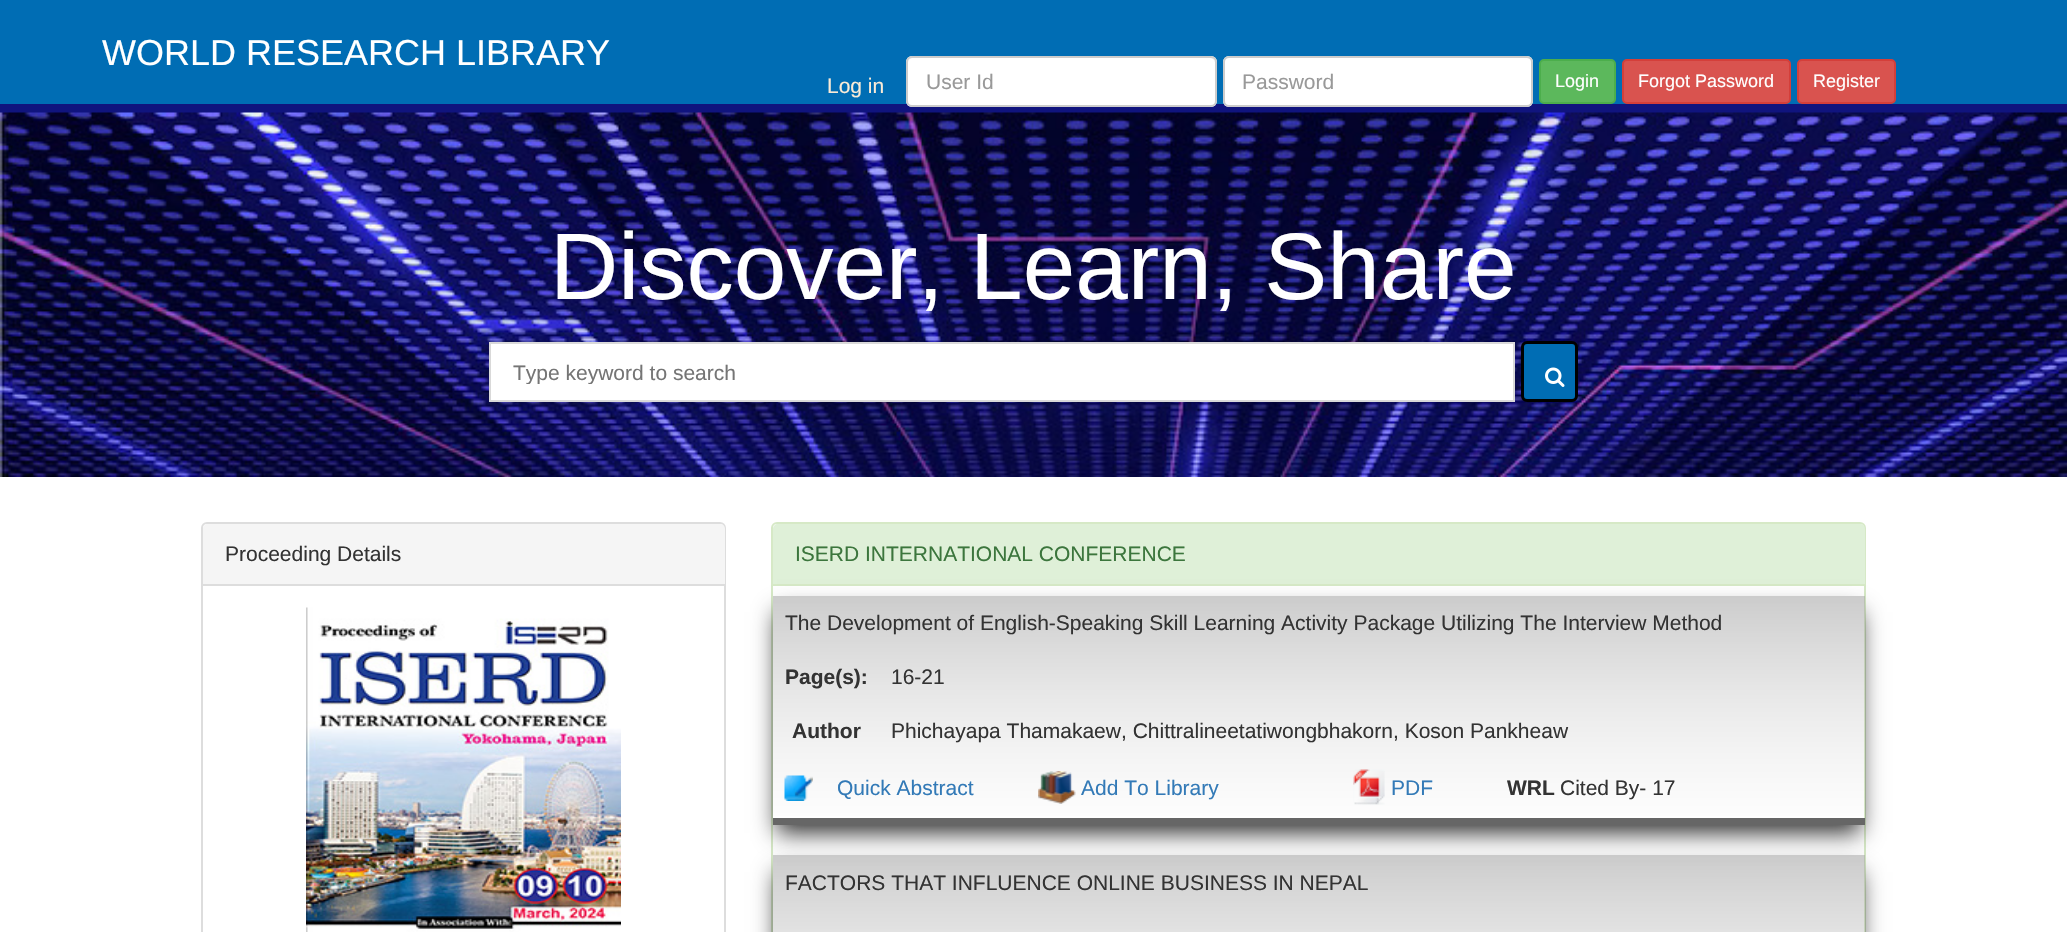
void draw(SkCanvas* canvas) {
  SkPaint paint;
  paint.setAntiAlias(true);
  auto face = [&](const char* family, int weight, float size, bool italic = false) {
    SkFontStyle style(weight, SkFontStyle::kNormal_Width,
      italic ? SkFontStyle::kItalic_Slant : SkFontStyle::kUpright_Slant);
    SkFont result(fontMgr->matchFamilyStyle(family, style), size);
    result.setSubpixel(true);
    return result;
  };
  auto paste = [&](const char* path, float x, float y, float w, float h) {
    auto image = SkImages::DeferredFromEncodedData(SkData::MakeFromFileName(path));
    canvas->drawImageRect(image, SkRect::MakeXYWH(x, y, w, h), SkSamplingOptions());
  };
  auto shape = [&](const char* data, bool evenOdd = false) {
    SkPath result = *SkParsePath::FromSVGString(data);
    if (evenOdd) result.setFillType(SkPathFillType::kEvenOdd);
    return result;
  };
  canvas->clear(0xffffffff);
  paint.setColor(0xff006db4);
  canvas->drawRect(SkRect::MakeXYWH(0, 0, 2067, 104), paint);
  paint.setColor(0xff10147e);
  canvas->drawRect(SkRect::MakeXYWH(0, 104, 2067, 9), paint);
  paint.setColor(0xffffffff);
  canvas->drawRoundRect(SkRect::MakeXYWH(906, 56, 311, 51), 6, 6, paint);
  paint.setColor(0xffececec);
  canvas->drawPath(shape("M912 58H1210C1213 58 1215 61 1215 63C1215 60 1213 57 1210 57H913C910 57 908 60 908 63C908 61 910 58 912 58Z"), paint);
  paint.setStroke(true);
  paint.setStrokeWidth(2);
  paint.setColor(0xffcccccc);
  canvas->drawRoundRect(SkRect::MakeXYWH(907, 57, 309, 49), 5, 5, paint);
  paint.setStroke(false);
  paint.setColor(0xffffffff);
  canvas->drawRoundRect(SkRect::MakeXYWH(1223, 56, 310, 51), 6, 6, paint);
  paint.setColor(0xffececec);
  canvas->drawPath(shape("M1228 58H1527C1529 58 1532 61 1532 63C1532 60 1530 57 1527 57H1229C1226 57 1224 60 1224 63C1224 61 1226 58 1228 58Z"), paint);
  paint.setStroke(true);
  paint.setColor(0xffcccccc);
  canvas->drawRoundRect(SkRect::MakeXYWH(1224, 57, 308, 49), 5, 5, paint);
  paint.setStroke(false);
  paint.setColor(0xff5cb85c);
  canvas->drawRoundRect(SkRect::MakeXYWH(1540, 60, 75, 43), 4, 4, paint);
  paint.setStroke(true);
  paint.setColor(0xff4cae4c);
  canvas->drawRoundRect(SkRect::MakeXYWH(1540, 60, 75, 43), 4, 4, paint);
  paint.setStroke(false);
  paint.setColor(0xffd9534f);
  canvas->drawRoundRect(SkRect::MakeXYWH(1623, 60, 167, 43), 4, 4, paint);
  paint.setStroke(true);
  paint.setColor(0xffd43f3a);
  canvas->drawRoundRect(SkRect::MakeXYWH(1623, 60, 167, 43), 4, 4, paint);
  paint.setStroke(false);
  paint.setColor(0xffd9534f);
  canvas->drawRoundRect(SkRect::MakeXYWH(1798, 60, 97, 43), 4, 4, paint);
  paint.setStroke(true);
  paint.setColor(0xffd43f3a);
  canvas->drawRoundRect(SkRect::MakeXYWH(1798, 60, 97, 43), 4, 4, paint);
  paste("img/1.png", 0, 112, 2067, 365);
  paint.setStroke(false);
  paint.setColor(0x1a000000);
  paint.setMaskFilter(SkMaskFilter::MakeBlur(kNormal_SkBlurStyle, 4));
  canvas->drawRect(SkRect::MakeXYWH(488, 341, 1029, 63), paint);
  paint.setMaskFilter(nullptr);
  paint.setColor(0xffffffff);
  canvas->drawRect(SkRect::MakeXYWH(490, 343, 1024, 58), paint);
  paint.setStroke(true);
  paint.setColor(0xffd9d9d9);
  canvas->drawRect(SkRect::MakeXYWH(490, 343, 1024, 58), paint);
  paint.setStroke(false);
  paint.setColor(0xff006db4);
  canvas->drawRoundRect(SkRect::MakeXYWH(1522.5f, 342.5f, 54, 58), 4.5f, 4.5f, paint);
  paint.setStroke(true);
  paint.setStrokeWidth(3);
  paint.setColor(0xff000000);
  canvas->drawRoundRect(SkRect::MakeXYWH(1522.5f, 342.5f, 54, 58), 4.5f, 4.5f, paint);
  paste("img/2.png", 1545, 367, 20, 20);
  paint.setStrokeWidth(2);
  paint.setColor(0xffdddddd);
  canvas->drawRoundRect(SkRect::MakeXYWH(202, 523, 523, 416), 5, 5, paint);
  paint.setStroke(false);
  paint.setColor(0xfff5f5f5);
  canvas->drawPath(shape("M208 524H720C723 524 725 526 725 529V585H203V529C203 526 205 524 208 524Z"), paint);
  paint.setColor(0xffdddddd);
  canvas->drawRect(SkRect::MakeXYWH(203, 584, 522, 2), paint);
  paste("img/3.png", 306, 607, 315, 325);
  paint.setStroke(true);
  paint.setColor(0xffd6e9c6);
  canvas->drawRoundRect(SkRect::MakeXYWH(772, 523, 1093, 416), 5, 5, paint);
  paint.setStroke(false);
  paint.setColor(0xffdff0d8);
  canvas->drawPath(shape("M778 524H1860C1863 524 1865 526 1865 529V585H773V529C773 526 775 524 778 524Z"), paint);
  paint.setColor(0xffd6e9c6);
  canvas->drawRect(SkRect::MakeXYWH(773, 584, 1092, 2), paint);
  canvas->save();
  canvas->clipPath(shape("M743 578H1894V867H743ZM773 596H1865V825H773Z", true), true);
  paint.setColor(0xff333333);
  paint.setMaskFilter(SkMaskFilter::MakeBlur(kNormal_SkBlurStyle, 11));
  canvas->drawRect(SkRect::MakeXYWH(777, 612, 1083, 221), paint);
  paint.setMaskFilter(nullptr);
  canvas->restore();
  {
    const SkColor colors[] = {0x0acccccc, 0x80999999};
    const float stops[] = {0, 1};
    const SkPoint ends[] = {{1319, 818}, {1319, 596}};
    paint.setShader(SkGradientShader::MakeLinear(ends, colors, stops, 2, SkTileMode::kClamp));
    paint.setAlpha(255);
  }
  canvas->drawRect(SkRect::MakeXYWH(773, 596, 1092, 220), paint);
  paint.setShader(nullptr);
  paint.setColor(0xff666666);
  canvas->drawRect(SkRect::MakeXYWH(773, 818, 1092, 7), paint);
  paste("img/4.png", 784, 775, 29, 26);
  paste("img/5.png", 1038, 771, 38, 33);
  paste("img/6.png", 1353, 769, 32, 36);
  canvas->save();
  canvas->clipPath(shape("M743 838H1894V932H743ZM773 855H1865V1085H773Z", true), true);
  paint.setColor(0xff333333);
  paint.setMaskFilter(SkMaskFilter::MakeBlur(kNormal_SkBlurStyle, 11));
  canvas->drawRect(SkRect::MakeXYWH(777, 872, 1083, 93), paint);
  paint.setMaskFilter(nullptr);
  canvas->restore();
  {
    const SkColor colors[] = {0x0acccccc, 0x80999999};
    const float stops[] = {0, 1};
    const SkPoint ends[] = {{1319, 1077}, {1319, 855}};
    paint.setShader(SkGradientShader::MakeLinear(ends, colors, stops, 2, SkTileMode::kClamp));
    paint.setAlpha(255);
  }
  canvas->drawRect(SkRect::MakeXYWH(773, 855, 1092, 77), paint);
  auto f0 = face("Liberation Sans", 400, 36);
  paint.setShader(nullptr);
  paint.setColor(0xffffffff);
  canvas->drawString("WORLD RESEARCH LIBRARY", 102, 65, f0, paint);
  auto f1 = face("Liberation Sans", 400, 21);
  paint.setColor(0xfffaebd7);
  canvas->drawString("Log in", 827, 93, f1, paint);
  paint.setColor(0xff999999);
  canvas->drawString("User Id", 926, 89, f1, paint);
  canvas->drawString("Password", 1242, 89, f1, paint);
  auto f2 = face("Liberation Sans", 400, 18);
  paint.setColor(0xffffffff);
  {
    const struct { const char* s; float x, y; } items[] = {
      {"Login", 1555, 87},
      {"Forgot Password", 1638, 87},
      {"Register", 1813, 87},
    };
    for (auto [s, x, y] : items) {
      canvas->drawString(s, x, y, f2, paint);
    }
  }
  auto f3 = face("Liberation Sans", 400, 94.5f);
  canvas->drawString("Discover, Learn, Share", 550, 299, f3, paint);
  canvas->save();
  canvas->clipRect(SkRect::MakeXYWH(513, 360, 978, 24));
  paint.setColor(0xff757575);
  canvas->drawString("Type keyword to search", 513, 380, f1, paint);
  canvas->restore();
  paint.setColor(0xff333333);
  canvas->drawString("Proceeding Details", 225, 561, f1, paint);
  paint.setColor(0xff3c763d);
  canvas->drawString("ISERD INTERNATIONAL CONFERENCE", 795, 561, f1, paint);
  paint.setColor(0xff333333);
  canvas->drawString("The Development of English-Speaking Skill Learning Activity Package Utilizing The Interview Method", 785, 630, f1, paint);
  auto f4 = face("Liberation Sans", 700, 21);
  canvas->drawString("Page(s):", 785, 684, f4, paint);
  canvas->drawString("16-21", 891, 684, f1, paint);
  canvas->drawString("Author", 792, 738, f4, paint);
  canvas->drawString("Phichayapa Thamakaew, Chittralineetatiwongbhakorn, Koson Pankheaw", 891, 738, f1, paint);
  paint.setColor(0xff337ab7);
  {
    const struct { const char* s; float x, y; } items[] = {
      {"Quick Abstract", 837, 795},
      {"Add To Library", 1081, 795},
      {"PDF", 1391, 795},
    };
    for (auto [s, x, y] : items) {
      canvas->drawString(s, x, y, f1, paint);
    }
  }
  paint.setColor(0xff333333);
  canvas->drawString("WRL", 1507, 795, f4, paint);
  canvas->drawString("Cited By- 17", 1560, 795, f1, paint);
  canvas->drawString("FACTORS THAT INFLUENCE ONLINE BUSINESS IN NEPAL", 785, 890, f1, paint);
}
